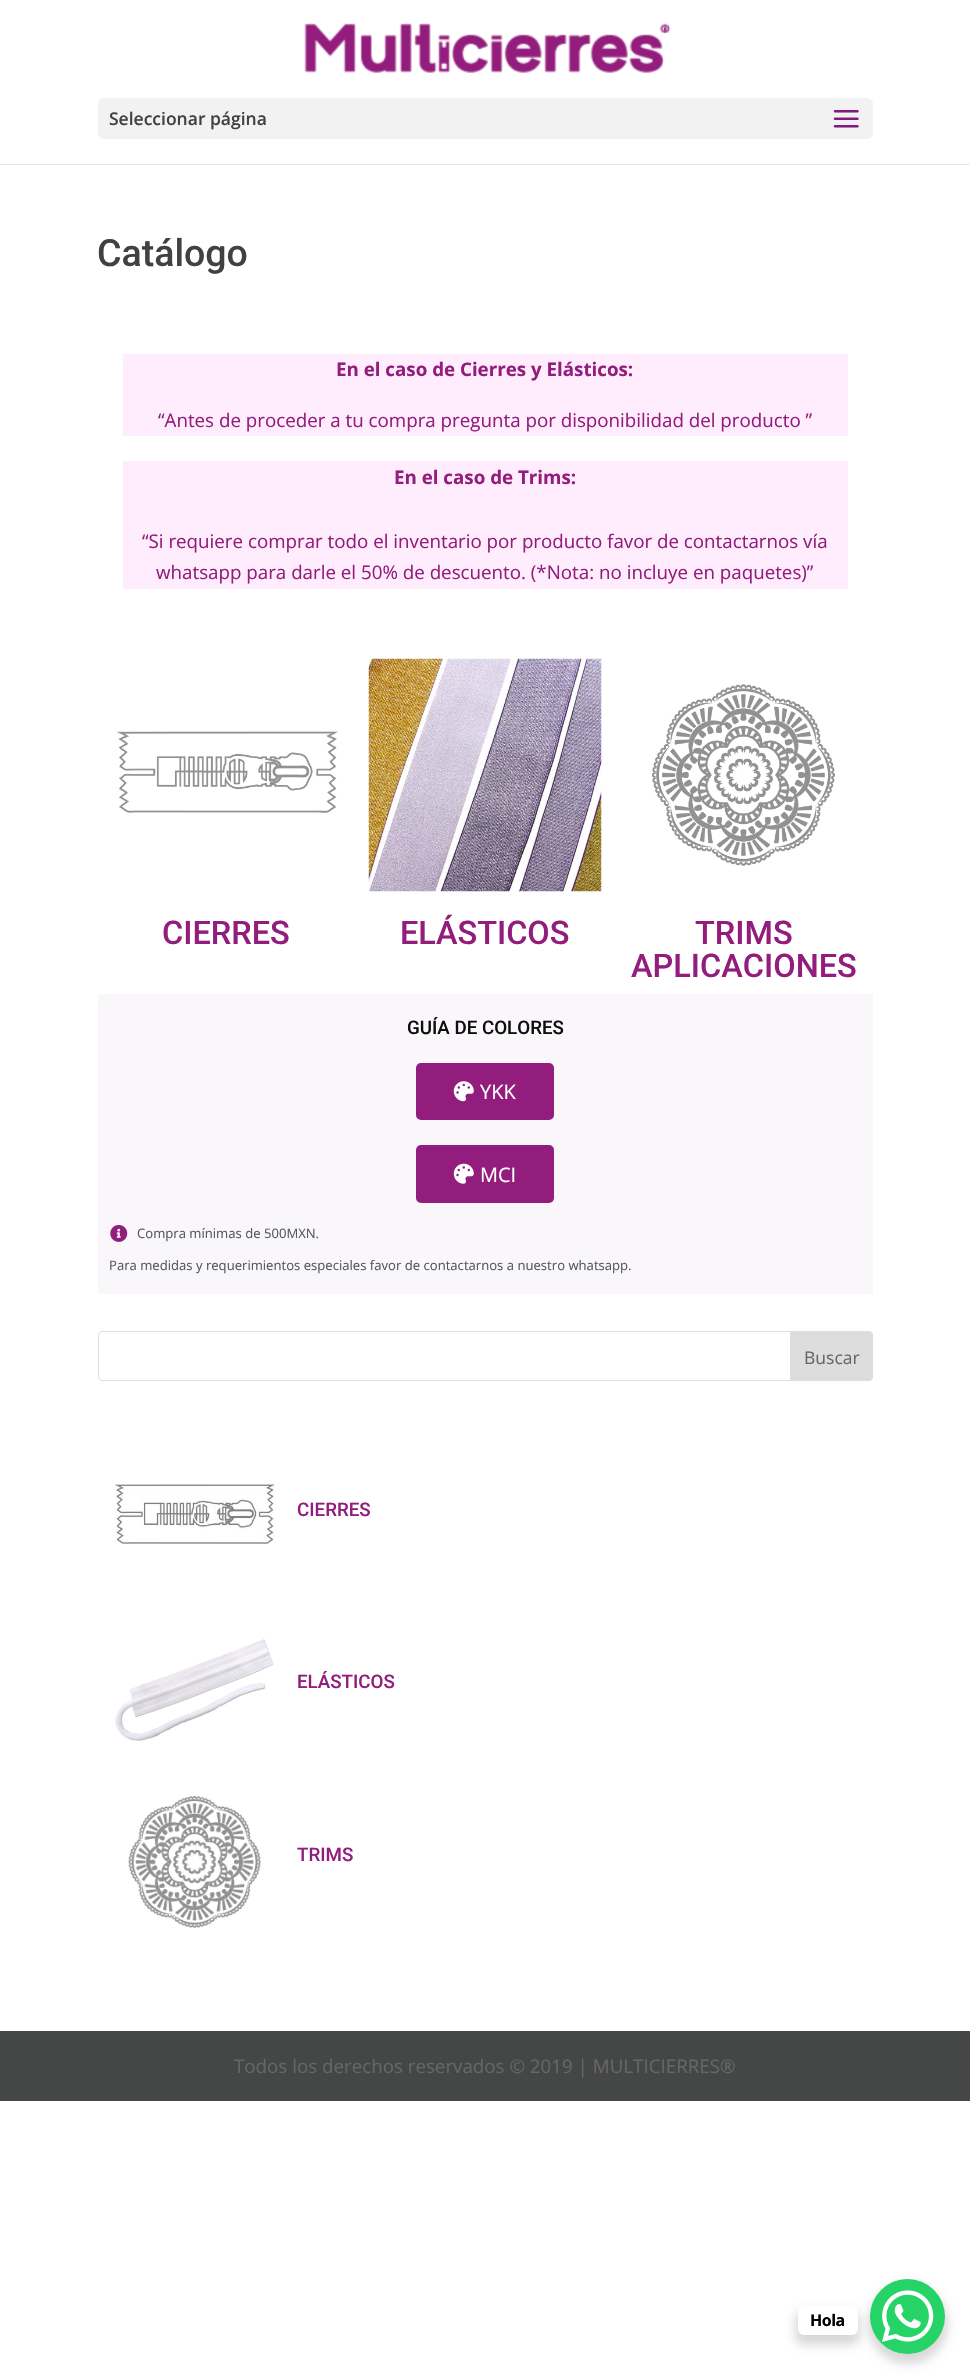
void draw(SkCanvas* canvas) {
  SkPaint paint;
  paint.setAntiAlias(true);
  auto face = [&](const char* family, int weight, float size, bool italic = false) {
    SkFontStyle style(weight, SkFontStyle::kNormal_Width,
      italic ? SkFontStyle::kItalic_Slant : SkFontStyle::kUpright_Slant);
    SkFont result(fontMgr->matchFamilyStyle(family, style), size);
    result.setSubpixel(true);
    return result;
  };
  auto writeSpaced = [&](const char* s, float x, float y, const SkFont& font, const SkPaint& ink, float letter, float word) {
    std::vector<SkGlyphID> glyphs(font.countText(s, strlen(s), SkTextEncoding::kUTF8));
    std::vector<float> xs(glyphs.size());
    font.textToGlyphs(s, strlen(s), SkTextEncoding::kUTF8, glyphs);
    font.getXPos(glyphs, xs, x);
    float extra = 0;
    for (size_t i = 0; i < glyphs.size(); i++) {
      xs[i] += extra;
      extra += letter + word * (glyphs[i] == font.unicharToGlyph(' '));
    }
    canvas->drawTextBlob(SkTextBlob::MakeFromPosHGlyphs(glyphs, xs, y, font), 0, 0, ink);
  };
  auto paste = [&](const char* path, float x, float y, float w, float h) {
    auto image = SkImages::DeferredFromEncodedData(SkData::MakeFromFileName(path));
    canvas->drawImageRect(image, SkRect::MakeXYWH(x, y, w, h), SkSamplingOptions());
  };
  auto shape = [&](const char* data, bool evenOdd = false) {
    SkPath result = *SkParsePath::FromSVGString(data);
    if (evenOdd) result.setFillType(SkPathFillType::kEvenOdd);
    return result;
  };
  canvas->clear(0xffffffff);
  paint.setColor(0xffe6e6e6);
  canvas->drawRect(SkRect::MakeXYWH(0, 164, 970, 1), paint);
  paste("img/1.png", 304, 23, 367, 50);
  paint.setColor(0xfff2f2f2);
  canvas->drawRoundRect(SkRect::MakeXYWH(98, 98, 775, 41), 6, 6, paint);
  paste("img/2.png", 833, 110, 26, 18);
  paint.setColor(0xffffedfd);
  canvas->drawRect(SkRect::MakeXYWH(123, 354, 725, 82), paint);
  canvas->drawRect(SkRect::MakeXYWH(123, 461, 725, 128), paint);
  paste("img/3.png", 116, 731, 222, 82);
  paste("img/4.png", 368, 658, 234, 234);
  paste("img/5.png", 652, 684, 183, 182);
  paint.setColor(0xfffaf7fb);
  canvas->drawRect(SkRect::MakeXYWH(98, 994, 775, 300), paint);
  paint.setColor(0xff931d7c);
  canvas->drawRoundRect(SkRect::MakeXYWH(416, 1063, 138, 57), 5, 5, paint);
  paste("img/6.png", 453, 1081, 21, 21);
  canvas->drawRoundRect(SkRect::MakeXYWH(416, 1145, 138, 58), 5, 5, paint);
  paste("img/7.png", 453, 1163, 21, 21);
  paste("img/8.png", 110, 1225, 18, 17);
  paint.setStroke(true);
  paint.setStrokeWidth(1);
  paint.setColor(0xffdddddd);
  canvas->drawRoundRect(SkRect::MakeXYWH(98.5f, 1331.5f, 774, 49), 3.5f, 3.5f, paint);
  paint.setStroke(false);
  canvas->drawPath(shape("M790.5 1331.5H869C871 1331.5 872.5 1333 872.5 1335V1377C872.5 1379 871 1380.5 869 1380.5H790.5Z"), paint);
  paint.setStroke(true);
  canvas->drawPath(shape("M790.5 1331.5H869C871 1331.5 872.5 1333 872.5 1335V1377C872.5 1379 871 1380.5 869 1380.5H790.5Z"), paint);
  paste("img/9.png", 114, 1483, 162, 61);
  paste("img/10.png", 115, 1639, 159, 102);
  paste("img/11.png", 128, 1796, 133, 132);
  paint.setStroke(false);
  paint.setColor(0xff454747);
  canvas->drawRect(SkRect::MakeXYWH(0, 2031, 970, 70), paint);
  paint.setColor(0x26000000);
  paint.setMaskFilter(SkMaskFilter::MakeBlur(kNormal_SkBlurStyle, 5));
  canvas->drawRoundRect(SkRect::MakeXYWH(868, 2284, 80, 80), 40, 40, paint);
  paint.setMaskFilter(nullptr);
  paint.setColor(0xff25d366);
  canvas->drawCircle(907.5f, 2316.5f, 37.5f, paint);
  paint.setColor(0x26000000);
  paint.setMaskFilter(SkMaskFilter::MakeBlur(kNormal_SkBlurStyle, 5));
  canvas->drawRoundRect(SkRect::MakeXYWH(795, 2311, 65, 34), 9, 9, paint);
  paint.setMaskFilter(nullptr);
  paint.setColor(0xffffffff);
  canvas->drawRoundRect(SkRect::MakeXYWH(798, 2306, 60, 29), 6, 6, paint);
  paste("img/12.png", 882, 2290, 52, 52);
  auto f0 = face("Open Sans", 600, 17.5f);
  paint.setColor(0xff414042);
  canvas->drawString("Seleccionar página", 109, 125, f0, paint);
  auto f1 = face("Roboto", 500, 37.5f);
  canvas->drawString("Catálogo", 97, 266, f1, paint);
  auto f2 = face("Open Sans", 700, 18.75f);
  paint.setColor(0xff931d7c);
  canvas->drawString("En el caso de Cierres y Elásticos:", 336, 376, f2, paint);
  auto f3 = face("Open Sans", 400, 18.75f);
  canvas->drawString("“Antes de proceder a tu compra pregunta por disponibilidad del producto ”", 158, 427, f3, paint);
  canvas->drawString("En el caso de Trims:", 394, 484, f2, paint);
  canvas->drawString("“Si requiere comprar todo el inventario por producto favor de contactarnos vía", 142, 548, f3, paint);
  canvas->drawString("whatsapp para darle el 50% de descuento. (*Nota: no incluye en paquetes)”", 156, 579, f3, paint);
  auto f4 = face("Roboto", 500, 32.5f);
  {
    const struct { const char* s; float x, y; } items[] = {
      {"CIERRES", 162, 944},
      {"ELÁSTICOS", 400, 944},
      {"TRIMS", 695, 944},
      {"APLICACIONES", 631, 977},
    };
    for (auto [s, x, y] : items) {
      canvas->drawString(s, x, y, f4, paint);
    }
  }
  auto f5 = face("Roboto", 500, 18.75f);
  paint.setColor(0xff0e0e0e);
  canvas->drawString("GUÍA DE COLORES", 407, 1034, f5, paint);
  auto f6 = face("Open Sans", 400, 20);
  paint.setColor(0xffffffff);
  canvas->drawString("YKK", 480, 1099, f6, paint);
  canvas->drawString("MCI", 480, 1182, f6, paint);
  auto f7 = face("Open Sans", 400, 13.1f);
  paint.setColor(0xff54595f);
  canvas->drawString("Compra mínimas de 500MXN.", 137, 1238, f7, paint);
  canvas->drawString("Para medidas y requerimientos especiales favor de contactarnos a nuestro whatsapp.", 109, 1270, f7, paint);
  auto f8 = face("Open Sans", 400, 17.5f);
  paint.setColor(0xff666666);
  canvas->drawString("Buscar", 804, 1364, f8, paint);
  paint.setColor(0xff931d7c);
  {
    const struct { const char* s; float x, y; } items[] = {
      {"CIERRES", 297, 1516},
      {"ELÁSTICOS", 297, 1688},
      {"TRIMS", 297, 1861},
    };
    for (auto [s, x, y] : items) {
      canvas->drawString(s, x, y, f5, paint);
    }
  }
  paint.setColor(0xff666666);
  canvas->drawString("Todos los derechos reservados © 2019 | MULTICIERRES®", 234, 2073, f3, paint);
  auto f9 = face("Open Sans", 700, 16);
  paint.setColor(0xff000000);
  writeSpaced("Hola", 810, 2326, f9, paint, -0.5f, 0);
}
